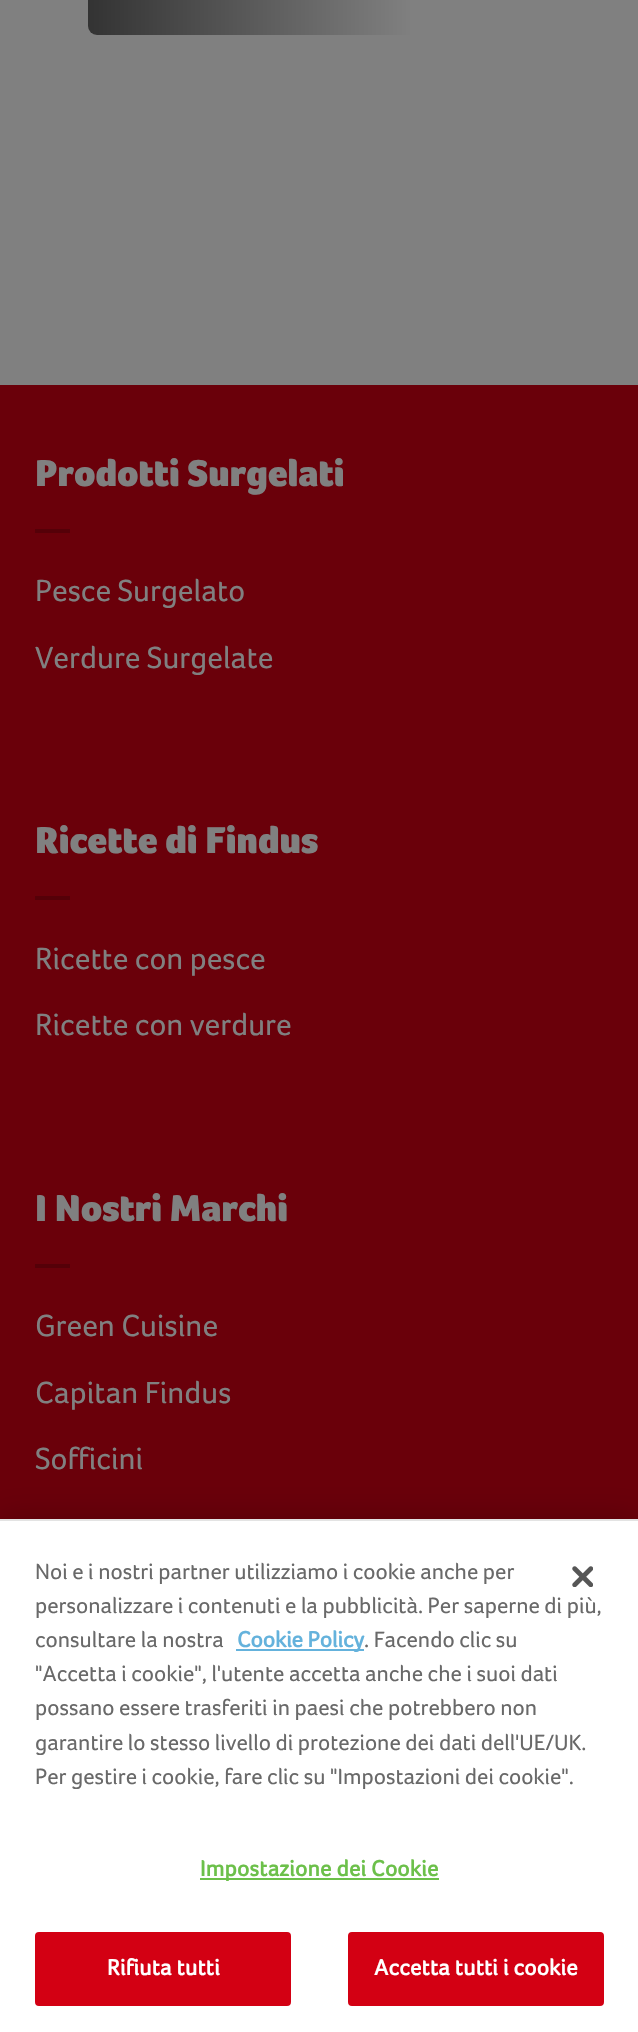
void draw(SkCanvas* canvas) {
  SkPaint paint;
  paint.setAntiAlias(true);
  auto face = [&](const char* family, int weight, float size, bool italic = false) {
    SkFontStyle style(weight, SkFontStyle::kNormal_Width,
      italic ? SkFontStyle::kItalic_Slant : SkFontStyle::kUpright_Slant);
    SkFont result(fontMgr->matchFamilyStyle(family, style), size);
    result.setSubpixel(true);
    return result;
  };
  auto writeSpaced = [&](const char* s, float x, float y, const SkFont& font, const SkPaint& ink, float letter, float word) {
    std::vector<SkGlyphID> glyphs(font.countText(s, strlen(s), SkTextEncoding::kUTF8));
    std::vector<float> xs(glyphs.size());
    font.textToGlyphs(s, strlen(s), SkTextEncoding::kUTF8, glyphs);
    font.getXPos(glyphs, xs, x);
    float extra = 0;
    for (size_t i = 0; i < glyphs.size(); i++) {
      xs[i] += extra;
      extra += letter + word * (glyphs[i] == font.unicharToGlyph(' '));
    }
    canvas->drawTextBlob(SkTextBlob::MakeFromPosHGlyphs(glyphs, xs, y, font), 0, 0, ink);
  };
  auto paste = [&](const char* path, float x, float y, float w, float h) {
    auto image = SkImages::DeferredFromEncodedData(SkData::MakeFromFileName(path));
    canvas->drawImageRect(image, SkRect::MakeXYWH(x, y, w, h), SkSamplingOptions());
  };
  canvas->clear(0xff808080);
  {
    const SkColor colors[] = {0xff333333, 0xff808080};
    const float stops[] = {0, 0.7f};
    const SkPoint ends[] = {{88, -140}, {551, -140}};
    paint.setShader(SkGradientShader::MakeLinear(ends, colors, stops, 2, SkTileMode::kClamp));
    paint.setAlpha(255);
  }
  canvas->drawRoundRect(SkRect::MakeXYWH(88, -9, 463, 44), 9, 9, paint);
  paint.setShader(nullptr);
  {
    const struct { float x, y, w, h; SkColor color; } items[] = {
      {0, 385, 638, 1134, 0xff6a000a},
      {35, 529, 35, 4, 0xff550008},
      {35, 896, 35, 4, 0xff550008},
      {35, 1264, 35, 4, 0xff550008},
    };
    for (auto [x, y, w, h, color] : items) {
      paint.setColor(color);
      canvas->drawRect(SkRect::MakeXYWH(x, y, w, h), paint);
    }
  }
  paint.setColor(0x33000000);
  paint.setMaskFilter(SkMaskFilter::MakeBlur(kNormal_SkBlurStyle, 16));
  canvas->drawRect(SkRect::MakeXYWH(0, 1519, 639, 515), paint);
  paint.setMaskFilter(nullptr);
  {
    const struct { float x, y, w, h; SkColor color; } items[] = {
      {0, 1521, 638, 511, 0xffffffff},
      {0, 1519, 638, 2, 0xffe3e3e3},
      {236, 1649, 128, 2, 0xff64b2dc},
      {200, 1878, 239, 2, 0xff6cc04a},
    };
    for (auto [x, y, w, h, color] : items) {
      paint.setColor(color);
      canvas->drawRect(SkRect::MakeXYWH(x, y, w, h), paint);
    }
  }
  paint.setColor(0xffd30013);
  canvas->drawRoundRect(SkRect::MakeXYWH(36, 1933, 254, 72), 3, 3, paint);
  paint.setStroke(true);
  paint.setStrokeWidth(2);
  canvas->drawRoundRect(SkRect::MakeXYWH(36, 1933, 254, 72), 3, 3, paint);
  paint.setStroke(false);
  canvas->drawRoundRect(SkRect::MakeXYWH(349, 1933, 254, 72), 3, 3, paint);
  paint.setStroke(true);
  canvas->drawRoundRect(SkRect::MakeXYWH(349, 1933, 254, 72), 3, 3, paint);
  paste("img/1.png", 572, 1566, 21, 21);
  auto f0 = face("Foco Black", 900, 38.5f);
  paint.setStroke(false);
  paint.setColor(0xff808080);
  canvas->drawString("Prodotti Surgelati", 35, 486, f0, paint);
  auto f1 = face("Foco", 400, 31.5f);
  canvas->drawString("Pesce Surgelato", 35, 601, f1, paint);
  canvas->drawString("Verdure Surgelate", 35, 668, f1, paint);
  canvas->drawString("Ricette di Findus", 35, 853, f0, paint);
  canvas->drawString("Ricette con pesce", 35, 969, f1, paint);
  canvas->drawString("Ricette con verdure", 35, 1035, f1, paint);
  canvas->drawString("I Nostri Marchi", 35, 1221, f0, paint);
  {
    const struct { const char* s; float x, y; } items[] = {
      {"Green Cuisine", 35, 1336},
      {"Capitan Findus", 35, 1403},
      {"Sofficini", 35, 1469},
    };
    for (auto [s, x, y] : items) {
      canvas->drawString(s, x, y, f1, paint);
    }
  }
  auto f2 = face("Foco", 400, 22.75f);
  paint.setColor(0xff696969);
  {
    const struct { const char* s; float x, y; } items[] = {
      {"Noi e i nostri partner utilizziamo i cookie anche per", 35, 1579},
      {"personalizzare i contenuti e la pubblicità. Per saperne di più,", 35, 1613},
      {"consultare la nostra", 35, 1647},
    };
    for (auto [s, x, y] : items) {
      canvas->drawString(s, x, y, f2, paint);
    }
  }
  auto f3 = face("Foco", 700, 22.75f);
  paint.setColor(0xff64b2dc);
  canvas->drawString("Cookie Policy", 237, 1647, f3, paint);
  paint.setColor(0xff696969);
  {
    const struct { const char* s; float x, y; } items[] = {
      {". Facendo clic su", 364, 1647},
      {"\"Accetta i cookie\", l'utente accetta anche che i suoi dati", 35, 1681},
      {"possano essere trasferiti in paesi che potrebbero non", 35, 1715},
      {"garantire lo stesso livello di protezione dei dati dell'UE/UK.", 35, 1750},
      {"Per gestire i cookie, fare clic su \"Impostazioni dei cookie\".", 35, 1784},
    };
    for (auto [s, x, y] : items) {
      canvas->drawString(s, x, y, f2, paint);
    }
  }
  paint.setColor(0xff6cc04a);
  writeSpaced("Impostazione dei Cookie", 200, 1876, f3, paint, 0.25f, 0);
  paint.setColor(0xffffffff);
  writeSpaced("Rifiuta tutti", 107, 1975, f3, paint, 0.25f, 0);
  writeSpaced("Accetta tutti i cookie", 374, 1975, f3, paint, 0.25f, 0);
}
